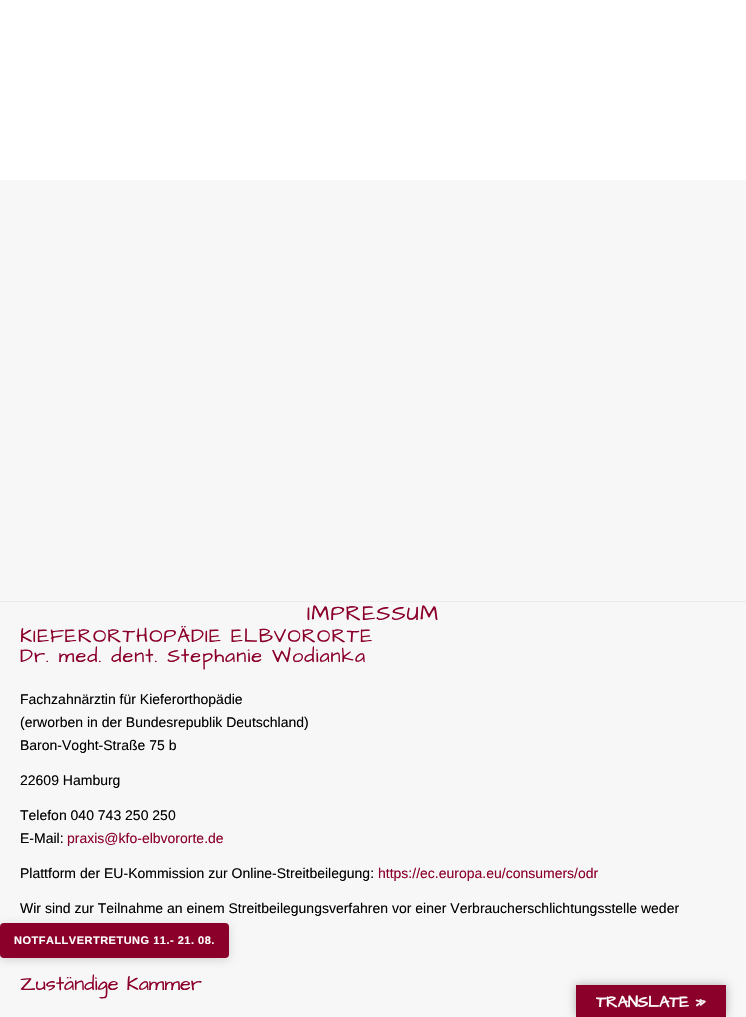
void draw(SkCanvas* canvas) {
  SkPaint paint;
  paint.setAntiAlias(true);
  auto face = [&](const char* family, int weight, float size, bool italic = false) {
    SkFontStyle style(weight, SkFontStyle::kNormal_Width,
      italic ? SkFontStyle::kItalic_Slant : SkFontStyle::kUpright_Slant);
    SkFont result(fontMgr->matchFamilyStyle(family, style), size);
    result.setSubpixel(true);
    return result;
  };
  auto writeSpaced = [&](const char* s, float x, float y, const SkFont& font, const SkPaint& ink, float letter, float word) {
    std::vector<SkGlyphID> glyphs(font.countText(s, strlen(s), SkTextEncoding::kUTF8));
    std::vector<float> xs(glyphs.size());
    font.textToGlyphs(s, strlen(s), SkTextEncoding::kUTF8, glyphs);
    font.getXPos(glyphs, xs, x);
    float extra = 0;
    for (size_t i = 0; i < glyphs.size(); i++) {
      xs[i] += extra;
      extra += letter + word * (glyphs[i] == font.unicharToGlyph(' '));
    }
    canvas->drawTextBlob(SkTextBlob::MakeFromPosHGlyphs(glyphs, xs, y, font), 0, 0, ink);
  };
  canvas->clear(0xfff7f7f7);
  paint.setColor(0xffffffff);
  canvas->drawRect(SkRect::MakeXYWH(0, 0, 746, 180), paint);
  paint.setColor(0xffebebeb);
  canvas->drawRect(SkRect::MakeXYWH(0, 601, 746, 1), paint);
  paint.setColor(0x26000000);
  paint.setMaskFilter(SkMaskFilter::MakeBlur(kNormal_SkBlurStyle, 4));
  canvas->drawRoundRect(SkRect::MakeXYWH(0, 925, 229, 35), 4, 4, paint);
  paint.setMaskFilter(nullptr);
  paint.setColor(0xff8b002a);
  canvas->drawRoundRect(SkRect::MakeXYWH(0, 923, 229, 35), 4, 4, paint);
  paint.setColor(0x4d000000);
  paint.setMaskFilter(SkMaskFilter::MakeBlur(kNormal_SkBlurStyle, 4.5f));
  canvas->drawRect(SkRect::MakeXYWH(576, 985, 150, 32), paint);
  paint.setMaskFilter(nullptr);
  paint.setColor(0xff8b002a);
  canvas->drawRect(SkRect::MakeXYWH(576, 985, 150, 32), paint);
  auto f0 = face("Architects Daughter", 400, 22);
  writeSpaced("IMPRESSUM", 307, 620, f0, paint, 1, 0);
  auto f1 = face("Architects Daughter", 400, 20);
  writeSpaced("KIEFERORTHOPÄDIE ELBVORORTE", 20, 642, f1, paint, 1, 0);
  writeSpaced("Dr. med. dent. Stephanie Wodianka", 20, 662, f1, paint, 1, 0);
  auto f2 = face("Liberation Sans", 400, 14);
  paint.setColor(0xff000000);
  {
    const struct { const char* s; float x, y; } items[] = {
      {"Fachzahnärztin für Kieferorthopädie", 20, 704},
      {"(erworben in der Bundesrepublik Deutschland)", 20, 727},
      {"Baron-Voght-Straße 75 b", 20, 750},
      {"22609 Hamburg", 20, 785},
      {"Telefon 040 743 250 250", 20, 820},
      {"E-Mail:", 20, 843},
    };
    for (auto [s, x, y] : items) {
      canvas->drawString(s, x, y, f2, paint);
    }
  }
  paint.setColor(0xff8b002a);
  canvas->drawString("praxis@kfo-elbvororte.de", 67, 843, f2, paint);
  paint.setColor(0xff000000);
  canvas->drawString("Plattform der EU-Kommission zur Online-Streitbeilegung:", 20, 878, f2, paint);
  paint.setColor(0xff8b002a);
  canvas->drawString("https://ec.europa.eu/consumers/odr", 378, 878, f2, paint);
  paint.setColor(0xff000000);
  canvas->drawString("Wir sind zur Teilnahme an einem Streitbeilegungsverfahren vor einer Verbraucherschlichtungsstelle weder", 20, 913, f2, paint);
  paint.setColor(0xff8b002a);
  canvas->drawString("Zuständige Kammer", 20, 990, f1, paint);
  auto f3 = face("Liberation Sans", 700, 11);
  paint.setColor(0xffffffff);
  writeSpaced("NOTFALLVERTRETUNG 11.- 21. 08.", 14, 944, f3, paint, 0.5f, 0);
  auto f4 = face("Architects Daughter", 700, 16);
  canvas->drawString("TRANSLATE »", 596, 1007, f4, paint);
}
